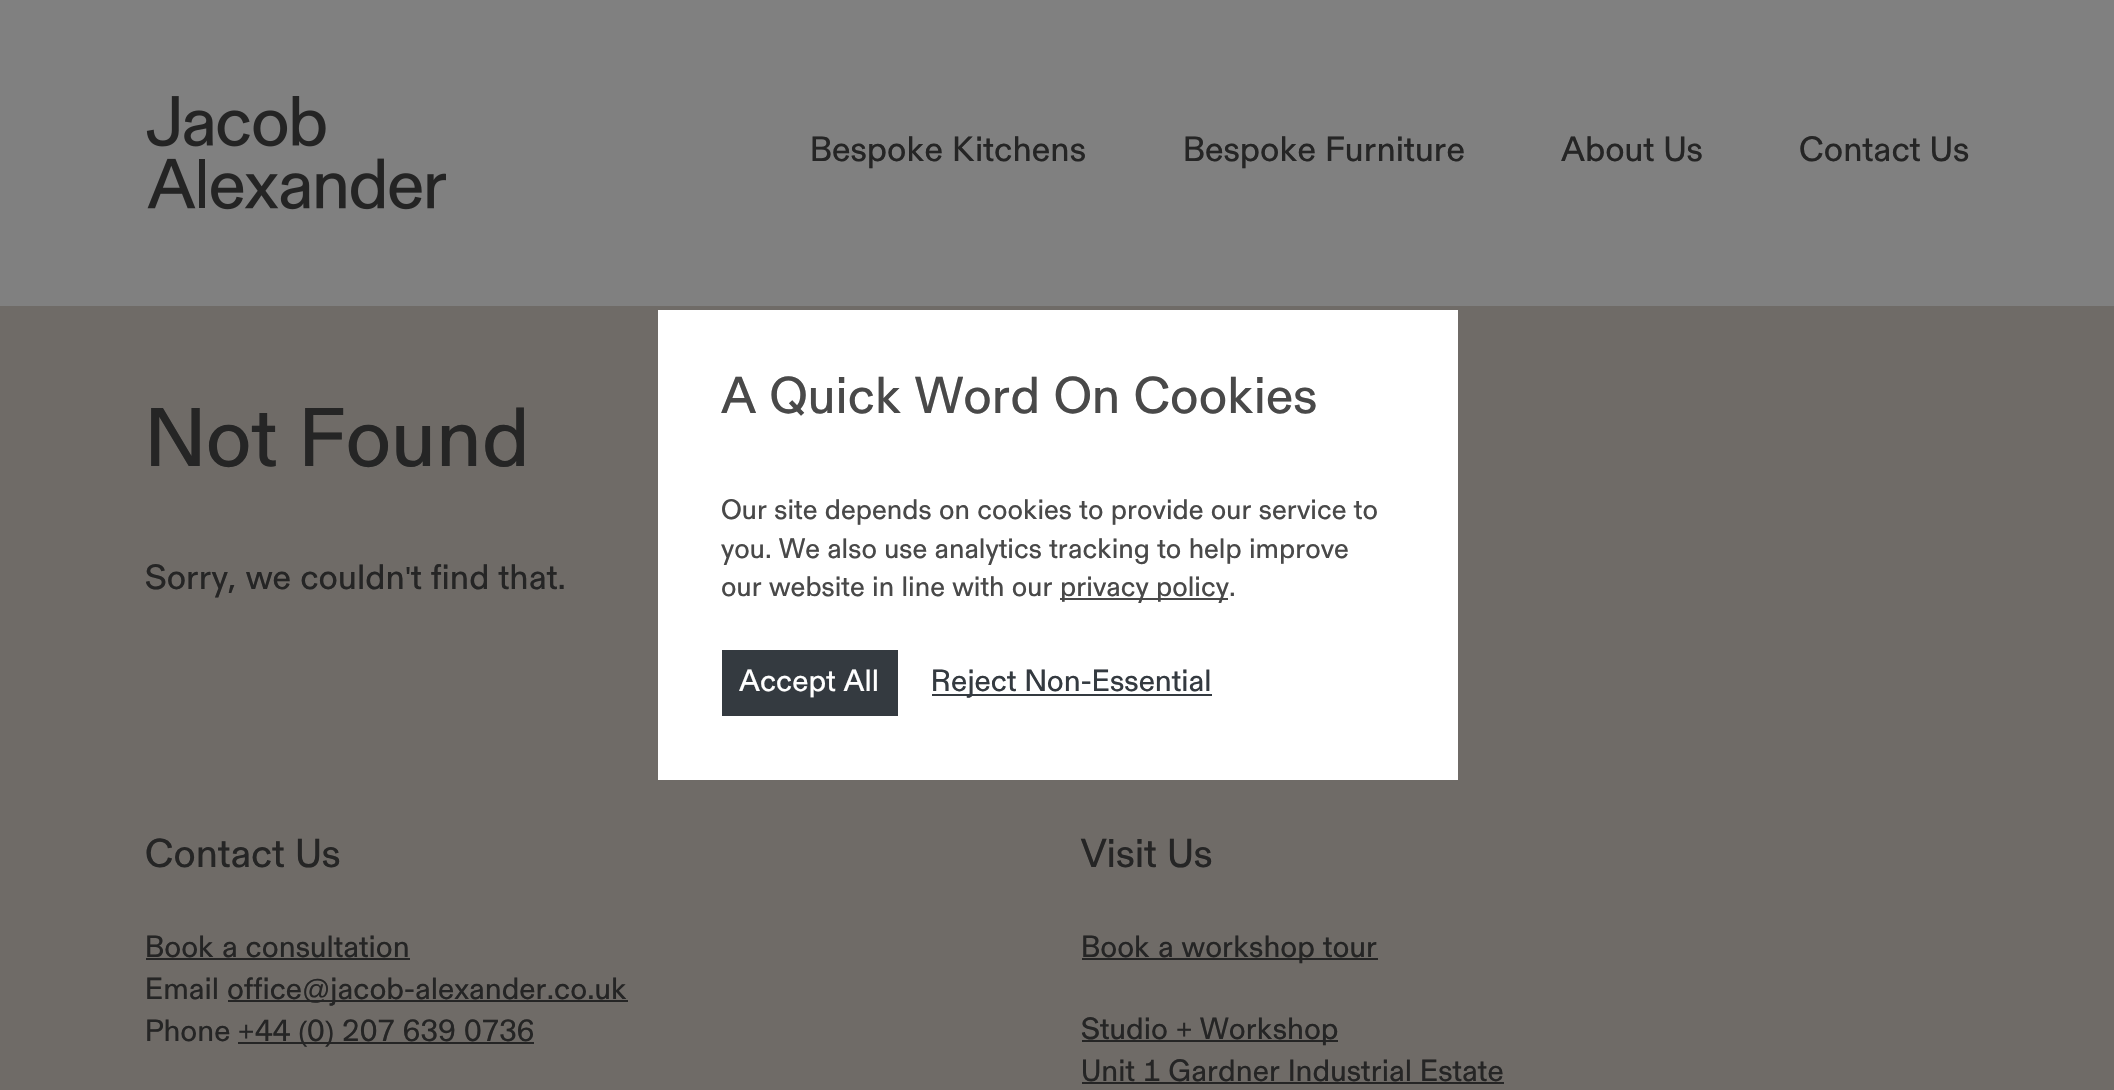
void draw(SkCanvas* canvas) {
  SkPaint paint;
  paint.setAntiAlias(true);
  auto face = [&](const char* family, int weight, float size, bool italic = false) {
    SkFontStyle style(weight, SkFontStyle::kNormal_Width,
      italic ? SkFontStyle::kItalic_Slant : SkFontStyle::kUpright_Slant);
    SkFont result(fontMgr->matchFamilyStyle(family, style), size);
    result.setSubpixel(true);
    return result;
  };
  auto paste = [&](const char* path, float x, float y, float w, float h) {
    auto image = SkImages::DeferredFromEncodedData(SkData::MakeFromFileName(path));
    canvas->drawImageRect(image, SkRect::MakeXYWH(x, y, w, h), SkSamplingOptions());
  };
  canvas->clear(0xff6f6b67);
  paint.setColor(0xff808080);
  canvas->drawRect(SkRect::MakeXYWH(0, 0, 2114, 306), paint);
  paste("img/1.png", 146, 96, 300, 114);
  {
    const struct { float x, y, w, h; SkColor color; } items[] = {
      {658, 310, 800, 470, 0xffffffff},
      {1060, 598, 168, 2, 0xff494949},
      {722, 650, 176, 66, 0xff343a40},
      {932, 694, 280, 2, 0xff343a40},
      {146, 958, 264, 2, 0xff252525},
      {228, 1000, 400, 2, 0xff252525},
      {238, 1042, 296, 2, 0xff252525},
      {1082, 958, 296, 2, 0xff252525},
      {1082, 1040, 256, 2, 0xff252525},
      {1082, 1082, 422, 2, 0xff252525},
    };
    for (auto [x, y, w, h, color] : items) {
      paint.setColor(color);
      canvas->drawRect(SkRect::MakeXYWH(x, y, w, h), paint);
    }
  }
  auto f0 = face("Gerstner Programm", 400, 32);
  {
    const struct { const char* s; float x, y; } items[] = {
      {"Bespoke Kitchens", 810, 161},
      {"Bespoke Furniture", 1183, 161},
      {"About Us", 1561, 161},
      {"Contact Us", 1799, 161},
    };
    for (auto [s, x, y] : items) {
      canvas->drawString(s, x, y, f0, paint);
    }
  }
  auto f1 = face("Gerstner Programm", 400, 75.75f);
  canvas->drawString("Not Found", 145, 466, f1, paint);
  canvas->drawString("Sorry, we couldn", 145, 589, f0, paint);
  auto f2 = face("Liberation Sans", 400, 32);
  canvas->drawString("'", 405, 589, f2, paint);
  canvas->drawString("t find that.", 411, 589, f0, paint);
  auto f3 = face("Gerstner Programm", 400, 47.1f);
  paint.setColor(0xff494949);
  canvas->drawString("A Quick Word On Cookies", 721, 413, f3, paint);
  auto f4 = face("Gerstner Programm", 400, 25.6f);
  {
    const struct { const char* s; float x, y; } items[] = {
      {"Our site depends on cookies to provide our service to", 721, 519},
      {"you. We also use analytics tracking to help improve", 721, 558},
      {"our website in line with our", 721, 596},
      {"privacy policy.", 1060, 596},
    };
    for (auto [s, x, y] : items) {
      canvas->drawString(s, x, y, f4, paint);
    }
  }
  auto f5 = face("Gerstner Programm", 400, 28);
  paint.setColor(0xffffffff);
  canvas->drawString("Accept All", 739, 691, f5, paint);
  paint.setColor(0xff343a40);
  canvas->drawString("Reject Non-Essential", 931, 691, f5, paint);
  auto f6 = face("Gerstner Programm", 400, 36.75f);
  paint.setColor(0xff252525);
  canvas->drawString("Contact Us", 145, 867, f6, paint);
  canvas->drawString("Book a consultation", 145, 957, f5, paint);
  canvas->drawString("Email office", 145, 999, f5, paint);
  auto f7 = face("Liberation Sans", 400, 28);
  canvas->drawString("@", 302, 999, f7, paint);
  canvas->drawString("jacob-alexander.co.uk", 330, 999, f5, paint);
  canvas->drawString("Phone", 145, 1041, f5, paint);
  canvas->drawString("+", 238, 1041, f7, paint);
  canvas->drawString("44", 255, 1041, f5, paint);
  canvas->drawString("(", 298, 1041, f7, paint);
  canvas->drawString("0", 307, 1041, f5, paint);
  canvas->drawString(")", 325, 1041, f7, paint);
  canvas->drawString("207 639 0736", 342, 1041, f5, paint);
  canvas->drawString("Visit Us", 1081, 867, f6, paint);
  canvas->drawString("Book a workshop tour", 1081, 957, f5, paint);
  canvas->drawString("Studio", 1081, 1039, f5, paint);
  canvas->drawString("+", 1176, 1039, f7, paint);
  canvas->drawString("Workshop", 1200, 1039, f5, paint);
  canvas->drawString("Unit 1 Gardner Industrial Estate", 1081, 1081, f5, paint);
}
